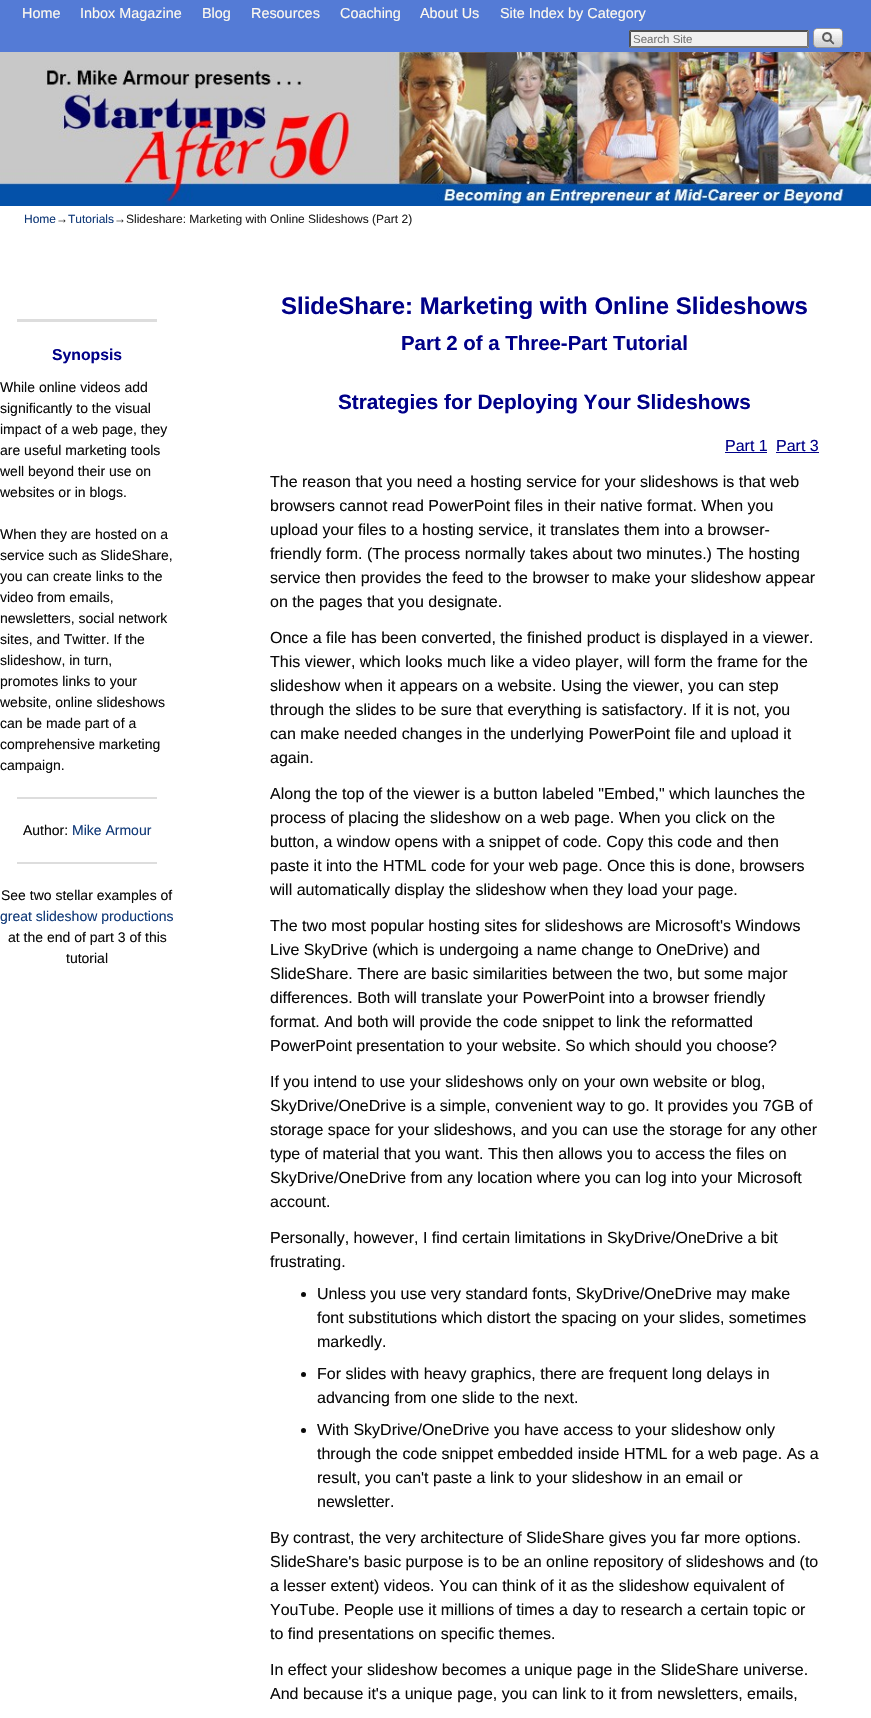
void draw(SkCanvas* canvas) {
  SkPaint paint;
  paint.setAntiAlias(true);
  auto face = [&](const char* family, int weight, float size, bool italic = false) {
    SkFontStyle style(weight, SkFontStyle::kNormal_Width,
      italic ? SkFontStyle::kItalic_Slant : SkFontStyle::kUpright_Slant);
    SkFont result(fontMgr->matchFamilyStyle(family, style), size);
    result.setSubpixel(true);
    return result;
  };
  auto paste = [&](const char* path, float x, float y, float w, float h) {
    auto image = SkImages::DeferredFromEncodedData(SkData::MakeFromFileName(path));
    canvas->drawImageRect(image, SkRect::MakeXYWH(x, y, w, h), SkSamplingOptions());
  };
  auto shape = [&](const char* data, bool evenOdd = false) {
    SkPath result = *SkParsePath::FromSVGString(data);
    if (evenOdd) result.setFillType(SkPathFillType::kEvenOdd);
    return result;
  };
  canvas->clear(0xffffffff);
  paint.setColor(0xff547bd6);
  canvas->drawRect(SkRect::MakeXYWH(0, 0, 871, 52), paint);
  paint.setColor(0xfff0f0f0);
  canvas->drawRect(SkRect::MakeXYWH(629, 30, 180, 18), paint);
  paint.setColor(0xff4f4f4f);
  canvas->drawPath(shape("M629 30H809L807 32H631Z"), paint);
  paint.setColor(0xff767676);
  canvas->drawPath(shape("M809 30V48L807 46V32Z"), paint);
  canvas->drawPath(shape("M809 48H629L631 46H807Z"), paint);
  paint.setColor(0xff4f4f4f);
  canvas->drawPath(shape("M629 48V30L631 32V46Z"), paint);
  paste("img/1.png", 813, 28, 30, 20);
  paste("img/2.png", 0, 52, 871, 154);
  {
    const struct { float x, y, w, h; SkColor color; } items[] = {
      {17, 319, 140, 3, 0xffdddddd},
      {17, 797, 140, 2, 0xffdddddd},
      {17, 862, 140, 2, 0xffdddddd},
      {725, 452, 42, 1, 0xff000088},
      {776, 452, 43, 1, 0xff000088},
    };
    for (auto [x, y, w, h, color] : items) {
      paint.setColor(color);
      canvas->drawRect(SkRect::MakeXYWH(x, y, w, h), paint);
    }
  }
  paint.setColor(0xff0a0a0a);
  canvas->drawCircle(303.5f, 1294.5f, 2.5f, paint);
  canvas->drawCircle(303.5f, 1374.5f, 2.5f, paint);
  canvas->drawCircle(303.5f, 1430.5f, 2.5f, paint);
  auto f0 = face("Liberation Sans", 400, 14.4f);
  paint.setColor(0xfffffaef);
  {
    const struct { const char* s; float x, y; } items[] = {
      {"Home", 22, 18},
      {"Inbox Magazine", 80, 18},
      {"Blog", 202, 18},
      {"Resources", 251, 18},
      {"Coaching", 340, 18},
      {"About Us", 420, 18},
      {"Site Index by Category", 500, 18},
    };
    for (auto [s, x, y] : items) {
      canvas->drawString(s, x, y, f0, paint);
    }
  }
  auto f1 = face("Liberation Sans", 400, 11.5f);
  paint.setColor(0xff757575);
  canvas->drawString("Search Site", 633, 43, f1, paint);
  auto f2 = face("Liberation Sans", 400, 12);
  paint.setColor(0xff103978);
  canvas->drawString("Home", 24, 223, f2, paint);
  paint.setColor(0xff222222);
  canvas->drawString("→", 56, 223, f2, paint);
  paint.setColor(0xff103978);
  canvas->drawString("Tutorials", 68, 223, f2, paint);
  paint.setColor(0xff222222);
  canvas->drawString("→Slideshare: Marketing with Online Slideshows (Part 2)", 114, 223, f2, paint);
  auto f3 = face("Liberation Sans", 700, 15.75f);
  paint.setColor(0xff000088);
  canvas->drawString("Synopsis", 52, 360, f3, paint);
  auto f4 = face("Liberation Sans", 400, 14);
  paint.setColor(0xff0a0a0a);
  {
    const struct { const char* s; float x, y; } items[] = {
      {"While online videos add", 0, 392},
      {"significantly to the visual", 0, 413},
      {"impact of a web page, they", 0, 434},
      {"are useful marketing tools", 0, 455},
      {"well beyond their use on", 0, 476},
      {"websites or in blogs.", 0, 497},
      {"When they are hosted on a", 0, 539},
      {"service such as SlideShare,", 0, 560},
      {"you can create links to the", 0, 581},
      {"video from emails,", 0, 602},
      {"newsletters, social network", 0, 623},
      {"sites, and Twitter. If the", 0, 644},
      {"slideshow, in turn,", 0, 665},
      {"promotes links to your", 0, 686},
      {"website, online slideshows", 0, 707},
      {"can be made part of a", 0, 728},
      {"comprehensive marketing", 0, 749},
      {"campaign.", 0, 770},
      {"Author:", 23, 835},
    };
    for (auto [s, x, y] : items) {
      canvas->drawString(s, x, y, f4, paint);
    }
  }
  paint.setColor(0xff103978);
  canvas->drawString("Mike Armour", 72, 835, f4, paint);
  paint.setColor(0xff0a0a0a);
  canvas->drawString("See two stellar examples of", 1, 900, f4, paint);
  paint.setColor(0xff103978);
  canvas->drawString("great slideshow productions", 0, 921, f4, paint);
  paint.setColor(0xff0a0a0a);
  canvas->drawString("at the end of part 3 of this", 8, 942, f4, paint);
  canvas->drawString("tutorial", 66, 963, f4, paint);
  auto f5 = face("Liberation Sans", 700, 24);
  paint.setColor(0xff000088);
  canvas->drawString("SlideShare: Marketing with Online Slideshows", 281, 314, f5, paint);
  auto f6 = face("Liberation Sans", 700, 20.4f);
  canvas->drawString("Part 2 of a Three-Part Tutorial", 401, 350, f6, paint);
  auto f7 = face("Liberation Sans", 700, 20.75f);
  canvas->drawString("Strategies for Deploying Your Slideshows", 338, 409, f7, paint);
  auto f8 = face("Liberation Sans", 400, 16);
  canvas->drawString("Part 1", 725, 451, f8, paint);
  canvas->drawString("Part 3", 776, 451, f8, paint);
  paint.setColor(0xff0a0a0a);
  {
    const struct { const char* s; float x, y; } items[] = {
      {"The reason that you need a hosting service for your slideshows is that web", 270, 487},
      {"browsers cannot read PowerPoint files in their native format. When you", 270, 511},
      {"upload your files to a hosting service, it translates them into a browser-", 270, 535},
      {"friendly form. (The process normally takes about two minutes.) The hosting", 270, 559},
      {"service then provides the feed to the browser to make your slideshow appear", 270, 583},
      {"on the pages that you designate.", 270, 607},
      {"Once a file has been converted, the finished product is displayed in a viewer.", 270, 643},
      {"This viewer, which looks much like a video player, will form the frame for the", 270, 667},
      {"slideshow when it appears on a website. Using the viewer, you can step", 270, 691},
      {"through the slides to be sure that everything is satisfactory. If it is not, you", 270, 715},
      {"can make needed changes in the underlying PowerPoint file and upload it", 270, 739},
      {"again.", 270, 763},
      {"Along the top of the viewer is a button labeled \"Embed,\" which launches the", 270, 799},
      {"process of placing the slideshow on a web page. When you click on the", 270, 823},
      {"button, a window opens with a snippet of code. Copy this code and then", 270, 847},
      {"paste it into the HTML code for your web page. Once this is done, browsers", 270, 871},
      {"will automatically display the slideshow when they load your page.", 270, 895},
      {"The two most popular hosting sites for slideshows are Microsoft's Windows", 270, 931},
      {"Live SkyDrive (which is undergoing a name change to OneDrive) and", 270, 955},
      {"SlideShare. There are basic similarities between the two, but some major", 270, 979},
      {"differences. Both will translate your PowerPoint into a browser friendly", 270, 1003},
      {"format. And both will provide the code snippet to link the reformatted", 270, 1027},
      {"PowerPoint presentation to your website. So which should you choose?", 270, 1051},
      {"If you intend to use your slideshows only on your own website or blog,", 270, 1087},
      {"SkyDrive/OneDrive is a simple, convenient way to go. It provides you 7GB of", 270, 1111},
      {"storage space for your slideshows, and you can use the storage for any other", 270, 1135},
      {"type of material that you want. This then allows you to access the files on", 270, 1159},
      {"SkyDrive/OneDrive from any location where you can log into your Microsoft", 270, 1183},
      {"account.", 270, 1207},
      {"Personally, however, I find certain limitations in SkyDrive/OneDrive a bit", 270, 1243},
      {"frustrating.", 270, 1267},
      {"Unless you use very standard fonts, SkyDrive/OneDrive may make", 317, 1299},
      {"font substitutions which distort the spacing on your slides, sometimes", 317, 1323},
      {"markedly.", 317, 1347},
      {"For slides with heavy graphics, there are frequent long delays in", 317, 1379},
      {"advancing from one slide to the next.", 317, 1403},
      {"With SkyDrive/OneDrive you have access to your slideshow only", 317, 1435},
      {"through the code snippet embedded inside HTML for a web page. As a", 317, 1459},
      {"result, you can't paste a link to your slideshow in an email or", 317, 1483},
      {"newsletter.", 317, 1507},
      {"By contrast, the very architecture of SlideShare gives you far more options.", 270, 1543},
      {"SlideShare's basic purpose is to be an online repository of slideshows and (to", 270, 1567},
      {"a lesser extent) videos. You can think of it as the slideshow equivalent of", 270, 1591},
      {"YouTube. People use it millions of times a day to research a certain topic or", 270, 1615},
      {"to find presentations on specific themes.", 270, 1639},
      {"In effect your slideshow becomes a unique page in the SlideShare universe.", 270, 1675},
      {"And because it's a unique page, you can link to it from newsletters, emails,", 270, 1699},
    };
    for (auto [s, x, y] : items) {
      canvas->drawString(s, x, y, f8, paint);
    }
  }
}
